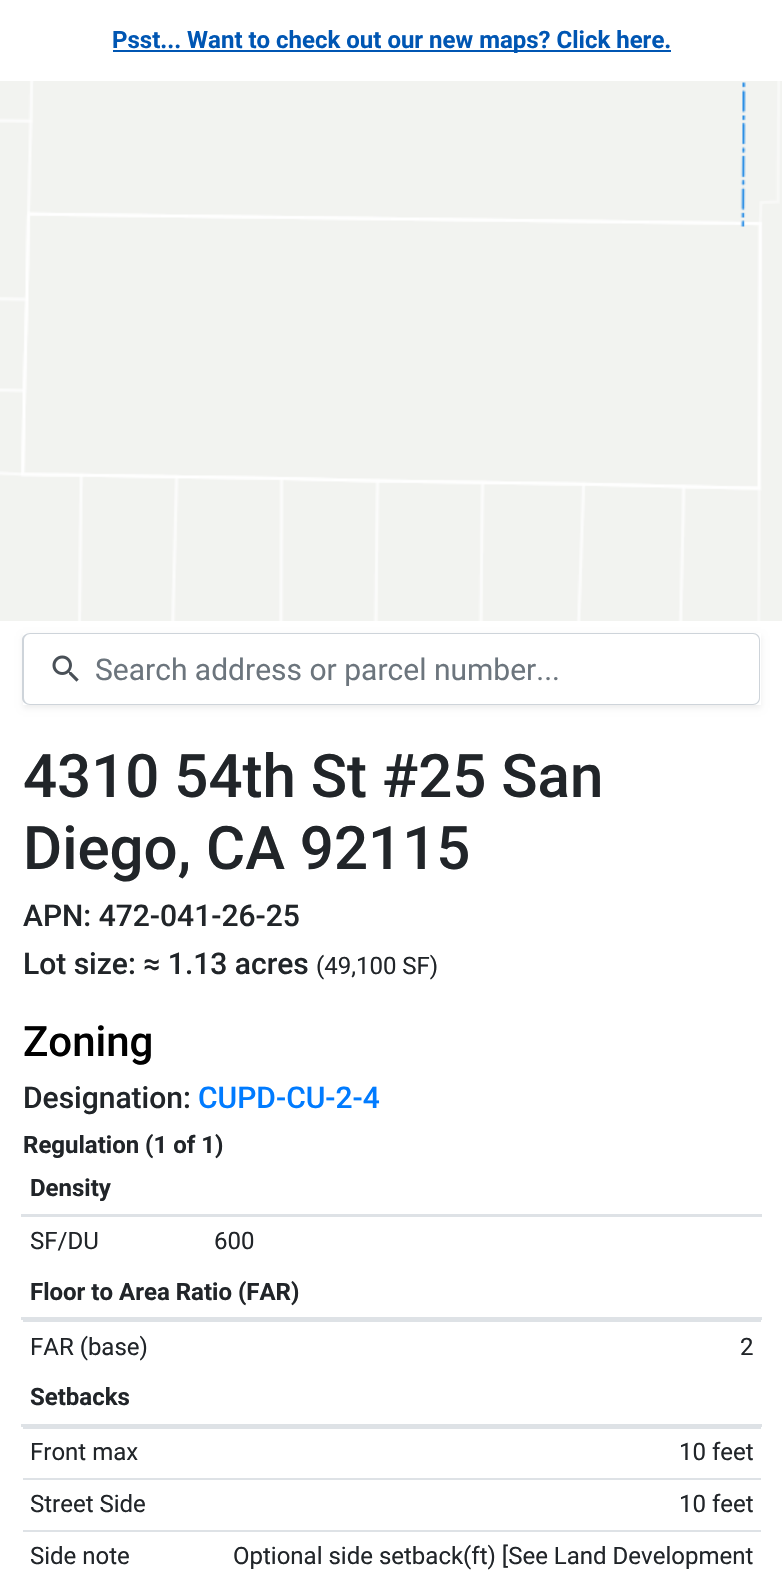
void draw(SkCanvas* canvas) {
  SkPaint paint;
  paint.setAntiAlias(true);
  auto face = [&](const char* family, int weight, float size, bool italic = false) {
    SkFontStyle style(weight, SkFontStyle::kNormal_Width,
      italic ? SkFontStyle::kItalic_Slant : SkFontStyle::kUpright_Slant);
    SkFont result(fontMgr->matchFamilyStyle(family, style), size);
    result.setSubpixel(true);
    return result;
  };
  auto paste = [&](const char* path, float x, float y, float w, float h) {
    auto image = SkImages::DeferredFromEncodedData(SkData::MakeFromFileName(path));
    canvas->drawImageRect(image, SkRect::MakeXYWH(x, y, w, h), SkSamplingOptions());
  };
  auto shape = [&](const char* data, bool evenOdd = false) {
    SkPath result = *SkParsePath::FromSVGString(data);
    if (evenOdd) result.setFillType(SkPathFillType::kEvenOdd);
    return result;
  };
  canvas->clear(0xffffffff);
  paint.setColor(0xff0056b3);
  canvas->drawRect(SkRect::MakeXYWH(113, 50, 558, 2), paint);
  paste("img/1.png", 0, 81, 782, 540);
  canvas->save();
  canvas->clipPath(shape("M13 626H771V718H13ZM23 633H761V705H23Z", true), true);
  paint.setColor(0x12000000);
  paint.setMaskFilter(SkMaskFilter::MakeBlur(kNormal_SkBlurStyle, 3));
  canvas->drawRect(SkRect::MakeXYWH(23, 636, 738, 72), paint);
  paint.setMaskFilter(nullptr);
  canvas->restore();
  paint.setColor(0xffced4da);
  canvas->drawPath(shape("M30 633H84V705H30C26 705 22 702 22 698V640C22 636 26 633 30 633ZM30 634H84V704H30C27 704 24 701 24 698V640C24 637 27 634 30 634Z", true), paint);
  paste("img/2.png", 52, 655, 27, 27);
  canvas->drawPath(shape("M82 633H753C757 633 760 636 760 640V698C760 702 757 705 753 705H82ZM82 634H753C756 634 759 637 759 640V698C759 701 756 704 753 704H82Z", true), paint);
  {
    const struct { float x, y, w, h; SkColor color; } items[] = {
      {21, 1214, 741, 3, 0xffdee2e6},
      {21, 1317, 741, 3, 0xffdee2e6},
      {23, 1320, 738, 2, 0xffdee2e6},
      {21, 1424, 741, 3, 0xffdee2e6},
      {23, 1427, 738, 2, 0xffdee2e6},
      {23, 1478, 738, 2, 0xffdee2e6},
      {23, 1530, 738, 2, 0xffdee2e6},
    };
    for (auto [x, y, w, h, color] : items) {
      paint.setColor(color);
      canvas->drawRect(SkRect::MakeXYWH(x, y, w, h), paint);
    }
  }
  auto f0 = face("Roboto", 700, 24);
  paint.setColor(0xff0056b3);
  canvas->drawString("Psst... Want to check out our new maps? Click here.", 112, 48, f0, paint);
  auto f1 = face("Roboto", 400, 30);
  paint.setColor(0xff6c757d);
  canvas->drawString("Search address or parcel number...", 95, 680, f1, paint);
  auto f2 = face("Roboto", 500, 60);
  paint.setColor(0xff212529);
  canvas->drawString("4310 54th St #25 San", 23, 797, f2, paint);
  canvas->drawString("Diego, CA 92115", 23, 869, f2, paint);
  auto f3 = face("Roboto", 500, 30);
  canvas->drawString("APN: 472-041-26-25", 23, 926, f3, paint);
  canvas->drawString("Lot size: ≈ 1.13 acres", 23, 974, f3, paint);
  auto f4 = face("Roboto", 400, 24);
  canvas->drawString("(49,100 SF)", 316, 974, f4, paint);
  auto f5 = face("Roboto", 500, 42);
  paint.setColor(0xff000000);
  canvas->drawString("Zoning", 23, 1056, f5, paint);
  paint.setColor(0xff212529);
  canvas->drawString("Designation:", 23, 1108, f3, paint);
  paint.setColor(0xff007bff);
  canvas->drawString("CUPD-CU-2-4", 198, 1108, f3, paint);
  paint.setColor(0xff212529);
  canvas->drawString("Regulation (1 of 1)", 23, 1153, f0, paint);
  canvas->drawString("Density", 30, 1196, f0, paint);
  canvas->drawString("SF/DU", 30, 1249, f4, paint);
  canvas->drawString("600", 214, 1249, f4, paint);
  canvas->drawString("Floor to Area Ratio (FAR)", 30, 1300, f0, paint);
  canvas->drawString("FAR (base)", 30, 1355, f4, paint);
  canvas->drawString("2", 740, 1355, f4, paint);
  canvas->drawString("Setbacks", 30, 1405, f0, paint);
  {
    const struct { const char* s; float x, y; } items[] = {
      {"Front max", 30, 1460},
      {"10 feet", 679, 1460},
      {"Street Side", 30, 1512},
      {"10 feet", 679, 1512},
      {"Side note", 30, 1564},
      {"Optional side setback(ft) [See Land Development", 233, 1564},
    };
    for (auto [s, x, y] : items) {
      canvas->drawString(s, x, y, f4, paint);
    }
  }
}
